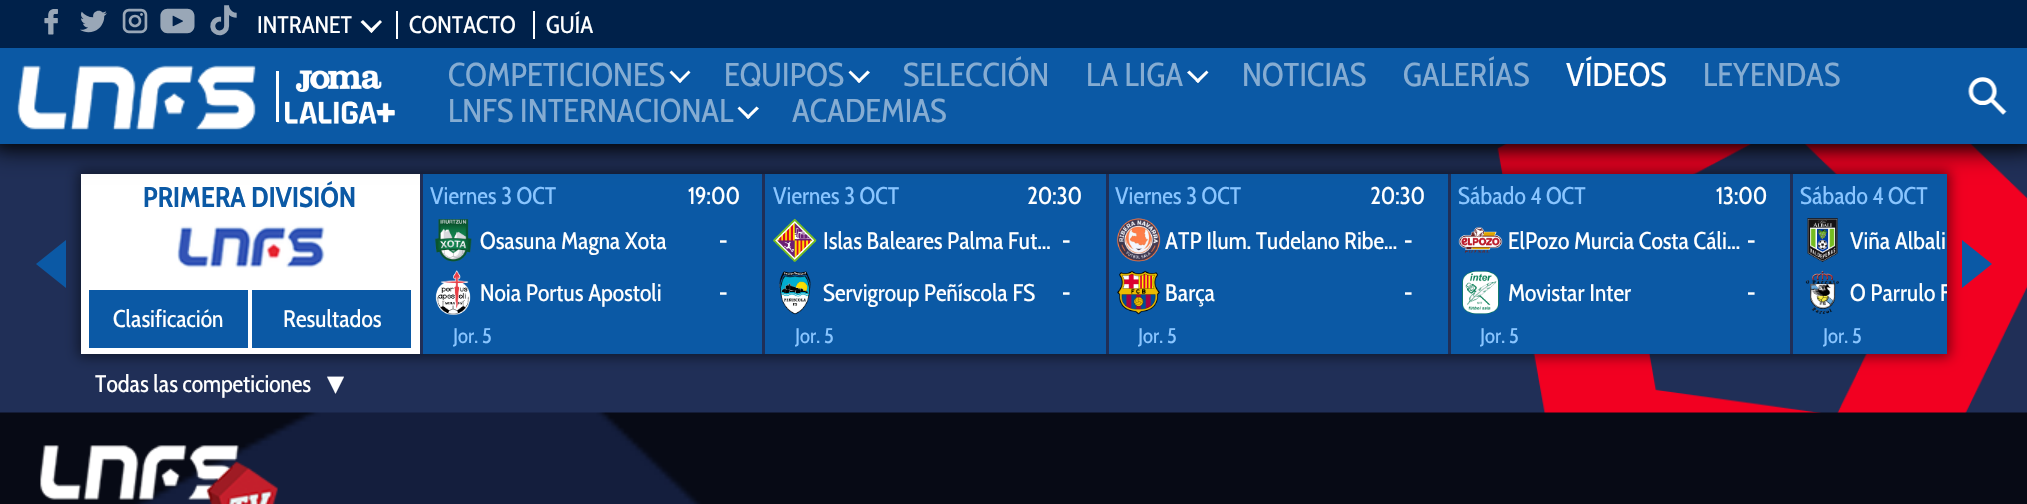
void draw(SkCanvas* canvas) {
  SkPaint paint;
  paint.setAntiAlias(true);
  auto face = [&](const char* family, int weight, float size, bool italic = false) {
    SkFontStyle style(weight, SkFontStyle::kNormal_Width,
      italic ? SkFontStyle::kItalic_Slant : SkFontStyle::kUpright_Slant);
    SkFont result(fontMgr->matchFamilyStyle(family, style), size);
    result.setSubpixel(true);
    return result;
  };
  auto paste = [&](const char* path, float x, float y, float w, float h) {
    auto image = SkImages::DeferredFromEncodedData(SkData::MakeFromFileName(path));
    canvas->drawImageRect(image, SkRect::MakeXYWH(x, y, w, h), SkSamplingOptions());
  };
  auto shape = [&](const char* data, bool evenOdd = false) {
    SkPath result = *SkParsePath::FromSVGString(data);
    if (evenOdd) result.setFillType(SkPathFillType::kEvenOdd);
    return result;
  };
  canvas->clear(0xffffffff);
  paste("img/1.png", 0, 412, 2027, 92);
  paste("img/11.png", 0, 144, 2027, 269);
  canvas->save();
  canvas->clipPath(shape("M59 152H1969V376H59ZM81 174H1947V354H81Z", true), true);
  paint.setColor(0x80000000);
  paint.setMaskFilter(SkMaskFilter::MakeBlur(kNormal_SkBlurStyle, 6));
  canvas->drawRect(SkRect::MakeXYWH(78, 171, 1872, 186), paint);
  paint.setMaskFilter(nullptr);
  canvas->restore();
  {
    const struct { float x, y, w, h; SkColor color; } items[] = {
      {81, 174, 339, 180, 0xffffffff},
      {423, 174, 339, 180, 0xff0b59a5},
      {765, 174, 341, 180, 0xff0b59a5},
      {1109, 174, 339, 180, 0xff0b59a5},
      {1451, 174, 339, 180, 0xff0b59a5},
      {1793, 174, 154, 180, 0xff0b59a5},
    };
    for (auto [x, y, w, h, color] : items) {
      paint.setColor(color);
      canvas->drawRect(SkRect::MakeXYWH(x, y, w, h), paint);
    }
  }
  paint.setColor(0xb3000000);
  paint.setMaskFilter(SkMaskFilter::MakeBlur(kNormal_SkBlurStyle, 11));
  canvas->drawRect(SkRect::MakeXYWH(-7, -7, 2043, 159), paint);
  paint.setMaskFilter(nullptr);
  paint.setColor(0x80000000);
  paint.setMaskFilter(SkMaskFilter::MakeBlur(kNormal_SkBlurStyle, 6));
  canvas->drawRect(SkRect::MakeXYWH(-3, 45, 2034, 102), paint);
  paint.setMaskFilter(nullptr);
  paint.setColor(0xff00214a);
  canvas->drawRect(SkRect::MakeXYWH(0, 0, 2027, 48), paint);
  paste("img/2.png", 44, 9, 14, 26);
  paste("img/3.png", 80, 10, 27, 23);
  paste("img/4.png", 122, 8, 26, 26);
  paste("img/5.png", 160, 8, 35, 26);
  paste("img/6.png", 210, 5, 27, 31);
  paint.setColor(0xffffffff);
  canvas->drawPath(shape("M380 20L382 22L371.5 33L369 30.5Z"), paint);
  canvas->drawPath(shape("M363 20L373.5 30.5L371.5 33L360.5 22Z"), paint);
  {
    const struct { float x, y, w, h; SkColor color; } items[] = {
      {396, 11, 2, 28, 0xffffffff},
      {533, 11, 2, 28, 0xffffffff},
      {0, 48, 2027, 96, 0xff0b59a5},
    };
    for (auto [x, y, w, h, color] : items) {
      paint.setColor(color);
      canvas->drawRect(SkRect::MakeXYWH(x, y, w, h), paint);
    }
  }
  paste("img/7.png", 17, 65, 239, 65);
  paint.setColor(0xffffffff);
  canvas->drawRect(SkRect::MakeXYWH(276, 71, 3, 51), paint);
  paste("img/8.png", 295, 70, 87, 22);
  paste("img/9.png", 285, 101, 110, 23);
  canvas->drawPath(shape("M688.5 70.5L690.5 72.5L680 83L678 81Z"), paint);
  canvas->drawPath(shape("M671.5 70.5L682 81L680 83L669.5 72.5Z"), paint);
  canvas->drawPath(shape("M867.5 70.5L870 72.5L859 83L857 81Z"), paint);
  canvas->drawPath(shape("M850.5 70.5L861.5 81L859 83L848.5 72.5Z"), paint);
  canvas->drawPath(shape("M1206.5 70.5L1208.5 72.5L1198 83L1195.5 81Z"), paint);
  canvas->drawPath(shape("M1189.5 70.5L1200 81L1198 83L1187 72.5Z"), paint);
  canvas->drawPath(shape("M756.5 106.5L759 108.5L748 119L746 117Z"), paint);
  canvas->drawPath(shape("M739.5 106.5L750.5 117L748 119L737.5 108.5Z"), paint);
  paste("img/10.png", 1968, 77, 39, 38);
  paint.setColor(0xff0b59a5);
  canvas->drawPath(shape("M66 240V288L36 264Z"), paint);
  paste("img/12.png", 177, 226, 148, 42);
  canvas->drawRect(SkRect::MakeXYWH(89, 290, 159, 58), paint);
  canvas->drawRect(SkRect::MakeXYWH(252, 290, 159, 58), paint);
  paste("img/13.png", 434, 219, 38, 43);
  paste("img/14.png", 435, 270, 36, 45);
  paste("img/15.png", 773, 218, 44, 44);
  paste("img/16.png", 779, 271, 32, 44);
  paste("img/17.png", 1116, 218, 45, 44);
  paste("img/18.png", 1117, 270, 44, 45);
  paste("img/19.png", 1458, 226, 45, 28);
  paste("img/20.png", 1462, 270, 37, 45);
  paste("img/21.png", 1807, 218, 31, 44);
  paste("img/22.png", 1805, 270, 34, 44);
  canvas->drawPath(shape("M1962 288V240L1992 264Z"), paint);
  paste("img/23.png", 40, 445, 238, 59);
  auto f0 = face("Cabin Condensed", 400, 24);
  paint.setColor(0xffffffff);
  {
    const struct { const char* s; float x, y; } items[] = {
      {"INTRANET", 257, 33},
      {"CONTACTO", 409, 33},
      {"GUÍA", 546, 33},
    };
    for (auto [s, x, y] : items) {
      canvas->drawString(s, x, y, f0, paint);
    }
  }
  auto f1 = face("Cabin Condensed", 400, 33);
  paint.setColor(0xff85acd2);
  {
    const struct { const char* s; float x, y; } items[] = {
      {"COMPETICIONES", 448, 86},
      {"EQUIPOS", 724, 86},
      {"SELECCIÓN", 903, 86},
      {"LA LIGA", 1086, 86},
      {"NOTICIAS", 1242, 86},
      {"GALERÍAS", 1403, 86},
    };
    for (auto [s, x, y] : items) {
      canvas->drawString(s, x, y, f1, paint);
    }
  }
  paint.setColor(0xffffffff);
  canvas->drawString("VÍDEOS", 1566, 86, f1, paint);
  paint.setColor(0xff85acd2);
  {
    const struct { const char* s; float x, y; } items[] = {
      {"LEYENDAS", 1703, 86},
      {"LNFS INTERNACIONAL", 448, 122},
      {"ACADEMIAS", 792, 122},
    };
    for (auto [s, x, y] : items) {
      canvas->drawString(s, x, y, f1, paint);
    }
  }
  auto f2 = face("Cabin Condensed", 700, 28.5f);
  paint.setColor(0xff0b59a5);
  canvas->drawString("PRIMERA DIVISIÓN", 143, 207, f2, paint);
  paint.setColor(0xffffffff);
  canvas->drawString("Clasificación", 113, 327, f0, paint);
  canvas->drawString("Resultados", 283, 327, f0, paint);
  paint.setColor(0xff89c5ff);
  canvas->drawString("Viernes 3 OCT", 430, 204, f0, paint);
  paint.setColor(0xffffffff);
  canvas->drawString("19:00", 688, 204, f0, paint);
  canvas->drawString("Osasuna Magna Xota", 480, 249, f0, paint);
  auto f3 = face("Cabin Condensed", 700, 24);
  canvas->drawString("-", 719, 249, f3, paint);
  canvas->drawString("Noia Portus Apostoli", 480, 301, f0, paint);
  canvas->drawString("-", 719, 301, f3, paint);
  auto f4 = face("Cabin Condensed", 400, 21);
  paint.setColor(0xff89c5ff);
  canvas->drawString("Jor. 5", 453, 343, f4, paint);
  canvas->drawString("Viernes 3 OCT", 773, 204, f0, paint);
  paint.setColor(0xffffffff);
  canvas->drawString("20:30", 1027, 204, f0, paint);
  canvas->drawString("Islas Baleares Palma Fut…", 823, 249, f0, paint);
  canvas->drawString("-", 1062, 249, f3, paint);
  canvas->drawString("Servigroup Peñíscola FS", 823, 301, f0, paint);
  canvas->drawString("-", 1062, 301, f3, paint);
  paint.setColor(0xff89c5ff);
  canvas->drawString("Jor. 5", 795, 343, f4, paint);
  canvas->drawString("Viernes 3 OCT", 1115, 204, f0, paint);
  paint.setColor(0xffffffff);
  canvas->drawString("20:30", 1370, 204, f0, paint);
  canvas->drawString("ATP Ilum. Tudelano Ribe…", 1165, 249, f0, paint);
  canvas->drawString("-", 1404, 249, f3, paint);
  canvas->drawString("Barça", 1165, 301, f0, paint);
  canvas->drawString("-", 1404, 301, f3, paint);
  paint.setColor(0xff89c5ff);
  canvas->drawString("Jor. 5", 1138, 343, f4, paint);
  canvas->drawString("Sábado 4 OCT", 1458, 204, f0, paint);
  paint.setColor(0xffffffff);
  canvas->drawString("13:00", 1716, 204, f0, paint);
  canvas->drawString("ElPozo Murcia Costa Cáli…", 1508, 249, f0, paint);
  canvas->drawString("-", 1747, 249, f3, paint);
  canvas->drawString("Movistar Inter", 1508, 301, f0, paint);
  canvas->drawString("-", 1747, 301, f3, paint);
  paint.setColor(0xff89c5ff);
  canvas->drawString("Jor. 5", 1480, 343, f4, paint);
  canvas->drawString("Sábado 4 OCT", 1800, 204, f0, paint);
  paint.setColor(0xffffffff);
  canvas->drawString("Viña Albali", 1850, 249, f0, paint);
  canvas->save();
  canvas->clipRect(SkRect::MakeXYWH(1850, 279, 97, 29));
  canvas->drawString("O Parrulo F", 1850, 301, f0, paint);
  canvas->restore();
  paint.setColor(0xff89c5ff);
  canvas->drawString("Jor. 5", 1823, 343, f4, paint);
  paint.setColor(0xffffffff);
  canvas->drawString("Todas las competiciones", 95, 392, f0, paint);
  auto f5 = face("DejaVu Sans", 400, 34);
  canvas->drawString("▾", 327, 394, f5, paint);
}
